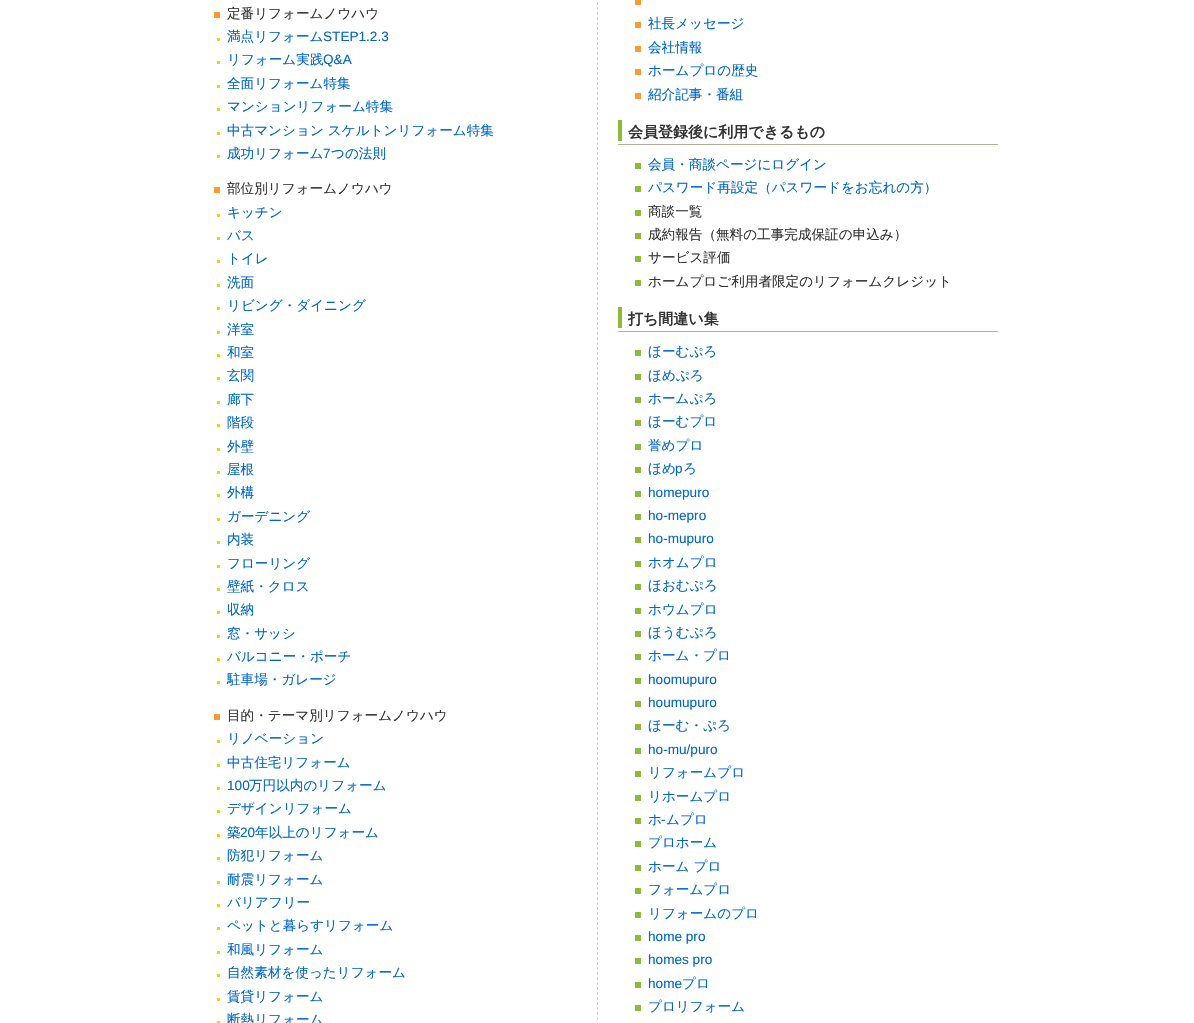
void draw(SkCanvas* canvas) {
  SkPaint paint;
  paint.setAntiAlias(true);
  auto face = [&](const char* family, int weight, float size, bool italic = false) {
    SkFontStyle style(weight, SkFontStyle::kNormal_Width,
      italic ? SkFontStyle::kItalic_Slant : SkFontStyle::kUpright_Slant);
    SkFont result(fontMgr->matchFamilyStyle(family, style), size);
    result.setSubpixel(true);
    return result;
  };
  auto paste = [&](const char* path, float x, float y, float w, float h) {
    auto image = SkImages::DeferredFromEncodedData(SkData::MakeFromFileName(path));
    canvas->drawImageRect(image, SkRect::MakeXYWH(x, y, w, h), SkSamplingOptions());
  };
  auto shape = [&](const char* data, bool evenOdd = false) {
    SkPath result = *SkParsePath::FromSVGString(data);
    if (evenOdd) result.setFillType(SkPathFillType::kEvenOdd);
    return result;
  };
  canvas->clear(0xffffffff);
  paint.setStroke(true);
  paint.setStrokeWidth(1);
  paint.setColor(0xffcccccc);
  paint.setPathEffect(SkDashPathEffect::Make({{3, 2}}, 0));
  canvas->drawPath(shape("M597.5-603V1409"), paint);
  paint.setPathEffect(nullptr);
  paint.setStroke(false);
  {
    const struct { float x, y, w, h; SkColor color; } items[] = {
      {214, 12, 6, 6, 0xffff9933},
      {217, 38, 3, 3, 0xffffcc00},
      {217, 61, 3, 3, 0xffffcc00},
      {217, 85, 3, 3, 0xffffcc00},
      {217, 108, 3, 3, 0xffffcc00},
      {217, 132, 3, 3, 0xffffcc00},
      {217, 155, 3, 3, 0xffffcc00},
      {214, 187, 6, 6, 0xffff9933},
      {217, 214, 3, 3, 0xffffcc00},
      {217, 237, 3, 3, 0xffffcc00},
      {217, 260, 3, 3, 0xffffcc00},
      {217, 284, 3, 3, 0xffffcc00},
      {217, 307, 3, 3, 0xffffcc00},
      {217, 331, 3, 3, 0xffffcc00},
      {217, 354, 3, 3, 0xffffcc00},
      {217, 377, 3, 3, 0xffffcc00},
      {217, 401, 3, 3, 0xffffcc00},
      {217, 424, 3, 3, 0xffffcc00},
      {217, 448, 3, 3, 0xffffcc00},
      {217, 471, 3, 3, 0xffffcc00},
      {217, 494, 3, 3, 0xffffcc00},
      {217, 518, 3, 3, 0xffffcc00},
      {217, 541, 3, 3, 0xffffcc00},
      {217, 565, 3, 3, 0xffffcc00},
      {217, 588, 3, 3, 0xffffcc00},
      {217, 611, 3, 3, 0xffffcc00},
      {217, 635, 3, 3, 0xffffcc00},
      {217, 658, 3, 3, 0xffffcc00},
      {217, 681, 3, 3, 0xffffcc00},
      {214, 714, 6, 6, 0xffff9933},
      {217, 740, 3, 3, 0xffffcc00},
      {217, 764, 3, 3, 0xffffcc00},
      {217, 787, 3, 3, 0xffffcc00},
      {217, 810, 3, 3, 0xffffcc00},
      {217, 834, 3, 3, 0xffffcc00},
      {217, 857, 3, 3, 0xffffcc00},
      {217, 881, 3, 3, 0xffffcc00},
      {217, 904, 3, 3, 0xffffcc00},
      {217, 927, 3, 3, 0xffffcc00},
      {217, 951, 3, 3, 0xffffcc00},
      {217, 974, 3, 3, 0xffffcc00},
      {217, 998, 3, 3, 0xffffcc00},
      {217, 1021, 3, 2, 0xffffcc00},
      {635, 0, 6, 5, 0xffff9933},
      {635, 22, 6, 6, 0xffff9933},
      {635, 46, 6, 6, 0xffff9933},
      {635, 69, 6, 6, 0xffff9933},
      {635, 93, 6, 6, 0xffff9933},
    };
    for (auto [x, y, w, h, color] : items) {
      paint.setColor(color);
      canvas->drawRect(SkRect::MakeXYWH(x, y, w, h), paint);
    }
  }
  paste("img/1.png", 618, 120, 380, 25);
  {
    const struct { float x, y, w, h; SkColor color; } items[] = {
      {635, 163, 6, 6, 0xff8fb939},
      {635, 186, 6, 6, 0xff8fb939},
      {635, 210, 6, 6, 0xff8fb939},
      {635, 233, 6, 6, 0xff8fb939},
      {635, 256, 6, 6, 0xff8fb939},
      {635, 280, 6, 6, 0xff8fb939},
    };
    for (auto [x, y, w, h, color] : items) {
      paint.setColor(color);
      canvas->drawRect(SkRect::MakeXYWH(x, y, w, h), paint);
    }
  }
  paste("img/1.png", 618, 307, 380, 25);
  {
    const struct { float x, y, w, h; SkColor color; } items[] = {
      {635, 350, 6, 6, 0xff8fb939},
      {635, 374, 6, 6, 0xff8fb939},
      {635, 397, 6, 6, 0xff8fb939},
      {635, 420, 6, 6, 0xff8fb939},
      {635, 444, 6, 6, 0xff8fb939},
      {635, 467, 6, 6, 0xff8fb939},
      {635, 491, 6, 6, 0xff8fb939},
      {635, 514, 6, 6, 0xff8fb939},
      {635, 537, 6, 6, 0xff8fb939},
      {635, 561, 6, 6, 0xff8fb939},
      {635, 584, 6, 6, 0xff8fb939},
      {635, 608, 6, 6, 0xff8fb939},
      {635, 631, 6, 6, 0xff8fb939},
      {635, 654, 6, 6, 0xff8fb939},
      {635, 678, 6, 6, 0xff8fb939},
      {635, 701, 6, 6, 0xff8fb939},
      {635, 724, 6, 6, 0xff8fb939},
      {635, 748, 6, 6, 0xff8fb939},
      {635, 771, 6, 6, 0xff8fb939},
      {635, 795, 6, 6, 0xff8fb939},
      {635, 818, 6, 6, 0xff8fb939},
      {635, 841, 6, 6, 0xff8fb939},
      {635, 865, 6, 6, 0xff8fb939},
      {635, 888, 6, 6, 0xff8fb939},
      {635, 912, 6, 6, 0xff8fb939},
      {635, 935, 6, 6, 0xff8fb939},
      {635, 958, 6, 6, 0xff8fb939},
      {635, 982, 6, 6, 0xff8fb939},
      {635, 1005, 6, 6, 0xff8fb939},
    };
    for (auto [x, y, w, h, color] : items) {
      paint.setColor(color);
      canvas->drawRect(SkRect::MakeXYWH(x, y, w, h), paint);
    }
  }
  auto f0 = face("WenQuanYi Zen Hei", 500, 13.6f);
  paint.setColor(0xff333333);
  canvas->drawString("定番リフォームノウハウ", 227, 18, f0, paint);
  paint.setColor(0xff0066cc);
  canvas->drawString("満点リフォーム", 227, 41, f0, paint);
  auto f1 = face("Liberation Sans", 400, 13.6f);
  canvas->drawString("STEP1.2.3", 323, 41, f1, paint);
  canvas->drawString("リフォーム実践", 227, 64, f0, paint);
  canvas->drawString("Q&A", 323, 64, f1, paint);
  {
    const struct { const char* s; float x, y; } items[] = {
      {"全面リフォーム特集", 227, 88},
      {"マンションリフォーム特集", 227, 111},
      {"中古マンション スケルトンリフォーム特集", 227, 135},
      {"成功リフォーム", 227, 158},
    };
    for (auto [s, x, y] : items) {
      canvas->drawString(s, x, y, f0, paint);
    }
  }
  canvas->drawString("7", 323, 158, f1, paint);
  canvas->drawString("つの法則", 331, 158, f0, paint);
  paint.setColor(0xff333333);
  canvas->drawString("部位別リフォームノウハウ", 227, 193, f0, paint);
  paint.setColor(0xff0066cc);
  {
    const struct { const char* s; float x, y; } items[] = {
      {"キッチン", 227, 217},
      {"バス", 227, 240},
      {"トイレ", 227, 263},
      {"洗面", 227, 287},
      {"リビング・ダイニング", 227, 310},
      {"洋室", 227, 334},
      {"和室", 227, 357},
      {"玄関", 227, 380},
      {"廊下", 227, 404},
      {"階段", 227, 427},
      {"外壁", 227, 451},
      {"屋根", 227, 474},
      {"外構", 227, 497},
      {"ガーデニング", 227, 521},
      {"内装", 227, 544},
      {"フローリング", 227, 568},
      {"壁紙・クロス", 227, 591},
      {"収納", 227, 614},
      {"窓・サッシ", 227, 638},
      {"バルコニー・ポーチ", 227, 661},
      {"駐車場・ガレージ", 227, 684},
    };
    for (auto [s, x, y] : items) {
      canvas->drawString(s, x, y, f0, paint);
    }
  }
  paint.setColor(0xff333333);
  canvas->drawString("目的・テーマ別リフォームノウハウ", 227, 720, f0, paint);
  paint.setColor(0xff0066cc);
  canvas->drawString("リノベーション", 227, 743, f0, paint);
  canvas->drawString("中古住宅リフォーム", 227, 767, f0, paint);
  canvas->drawString("100", 227, 790, f1, paint);
  {
    const struct { const char* s; float x, y; } items[] = {
      {"万円以内のリフォーム", 249, 790},
      {"デザインリフォーム", 227, 813},
      {"築", 227, 837},
    };
    for (auto [s, x, y] : items) {
      canvas->drawString(s, x, y, f0, paint);
    }
  }
  canvas->drawString("20", 240, 837, f1, paint);
  {
    const struct { const char* s; float x, y; } items[] = {
      {"年以上のリフォーム", 255, 837},
      {"防犯リフォーム", 227, 860},
      {"耐震リフォーム", 227, 884},
      {"バリアフリー", 227, 907},
      {"ペットと暮らすリフォーム", 227, 930},
      {"和風リフォーム", 227, 954},
      {"自然素材を使ったリフォーム", 227, 977},
      {"賃貸リフォーム", 227, 1001},
      {"断熱リフォーム", 227, 1024},
      {"社長メッセージ", 648, 28},
      {"会社情報", 648, 52},
      {"ホームプロの歴史", 648, 75},
      {"紹介記事・番組", 648, 99},
    };
    for (auto [s, x, y] : items) {
      canvas->drawString(s, x, y, f0, paint);
    }
  }
  auto f2 = face("WenQuanYi Zen Hei", 700, 15);
  paint.setColor(0xff333333);
  canvas->drawString("会員登録後に利用できるもの", 628, 137, f2, paint);
  paint.setColor(0xff0066cc);
  canvas->drawString("会員・商談ページにログイン", 648, 169, f0, paint);
  canvas->drawString("パスワード再設定（パスワードをお忘れの方）", 648, 192, f0, paint);
  paint.setColor(0xff333333);
  {
    const struct { const char* s; float x, y; } items[] = {
      {"商談一覧", 648, 216},
      {"成約報告（無料の工事完成保証の申込み）", 648, 239},
      {"サービス評価", 648, 262},
      {"ホームプロご利用者限定のリフォームクレジット", 648, 286},
    };
    for (auto [s, x, y] : items) {
      canvas->drawString(s, x, y, f0, paint);
    }
  }
  canvas->drawString("打ち間違い集", 628, 324, f2, paint);
  paint.setColor(0xff0066cc);
  {
    const struct { const char* s; float x, y; } items[] = {
      {"ほーむぷろ", 648, 356},
      {"ほめぷろ", 648, 380},
      {"ホームぷろ", 648, 403},
      {"ほーむプロ", 648, 426},
      {"誉めプロ", 648, 450},
      {"ほめ", 648, 473},
    };
    for (auto [s, x, y] : items) {
      canvas->drawString(s, x, y, f0, paint);
    }
  }
  canvas->drawString("p", 675, 473, f1, paint);
  canvas->drawString("ろ", 683, 473, f0, paint);
  {
    const struct { const char* s; float x, y; } items[] = {
      {"homepuro", 648, 497},
      {"ho-mepro", 648, 520},
      {"ho-mupuro", 648, 543},
    };
    for (auto [s, x, y] : items) {
      canvas->drawString(s, x, y, f1, paint);
    }
  }
  {
    const struct { const char* s; float x, y; } items[] = {
      {"ホオムプロ", 648, 567},
      {"ほおむぷろ", 648, 590},
      {"ホウムプロ", 648, 614},
      {"ほうむぷろ", 648, 637},
      {"ホーム・プロ", 648, 660},
    };
    for (auto [s, x, y] : items) {
      canvas->drawString(s, x, y, f0, paint);
    }
  }
  canvas->drawString("hoomupuro", 648, 684, f1, paint);
  canvas->drawString("houmupuro", 648, 707, f1, paint);
  canvas->drawString("ほーむ・ぷろ", 648, 730, f0, paint);
  canvas->drawString("ho-mu/puro", 648, 754, f1, paint);
  {
    const struct { const char* s; float x, y; } items[] = {
      {"リフォームプロ", 648, 777},
      {"リホームプロ", 648, 801},
      {"ホ", 648, 824},
    };
    for (auto [s, x, y] : items) {
      canvas->drawString(s, x, y, f0, paint);
    }
  }
  canvas->drawString("-", 661, 824, f1, paint);
  {
    const struct { const char* s; float x, y; } items[] = {
      {"ムプロ", 666, 824},
      {"プロホーム", 648, 847},
      {"ホーム プロ", 648, 871},
      {"フォームプロ", 648, 894},
      {"リフォームのプロ", 648, 918},
    };
    for (auto [s, x, y] : items) {
      canvas->drawString(s, x, y, f0, paint);
    }
  }
  {
    const struct { const char* s; float x, y; } items[] = {
      {"home pro", 648, 941},
      {"homes pro", 648, 964},
      {"home", 648, 988},
    };
    for (auto [s, x, y] : items) {
      canvas->drawString(s, x, y, f1, paint);
    }
  }
  canvas->drawString("プロ", 682, 988, f0, paint);
  canvas->drawString("プロリフォーム", 648, 1011, f0, paint);
}
